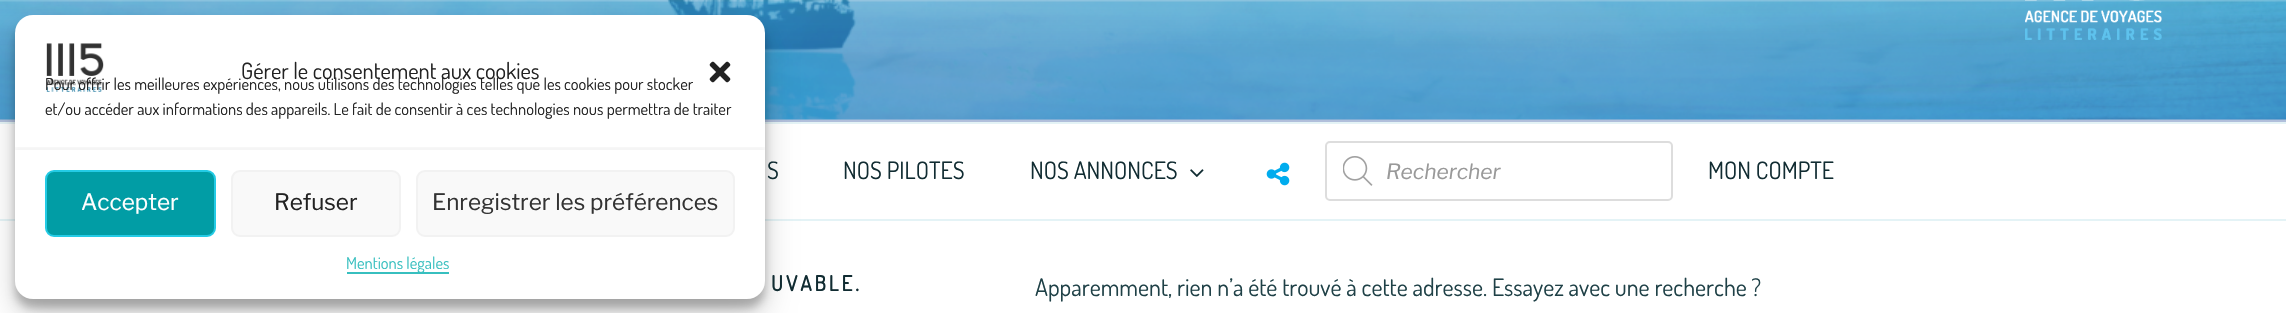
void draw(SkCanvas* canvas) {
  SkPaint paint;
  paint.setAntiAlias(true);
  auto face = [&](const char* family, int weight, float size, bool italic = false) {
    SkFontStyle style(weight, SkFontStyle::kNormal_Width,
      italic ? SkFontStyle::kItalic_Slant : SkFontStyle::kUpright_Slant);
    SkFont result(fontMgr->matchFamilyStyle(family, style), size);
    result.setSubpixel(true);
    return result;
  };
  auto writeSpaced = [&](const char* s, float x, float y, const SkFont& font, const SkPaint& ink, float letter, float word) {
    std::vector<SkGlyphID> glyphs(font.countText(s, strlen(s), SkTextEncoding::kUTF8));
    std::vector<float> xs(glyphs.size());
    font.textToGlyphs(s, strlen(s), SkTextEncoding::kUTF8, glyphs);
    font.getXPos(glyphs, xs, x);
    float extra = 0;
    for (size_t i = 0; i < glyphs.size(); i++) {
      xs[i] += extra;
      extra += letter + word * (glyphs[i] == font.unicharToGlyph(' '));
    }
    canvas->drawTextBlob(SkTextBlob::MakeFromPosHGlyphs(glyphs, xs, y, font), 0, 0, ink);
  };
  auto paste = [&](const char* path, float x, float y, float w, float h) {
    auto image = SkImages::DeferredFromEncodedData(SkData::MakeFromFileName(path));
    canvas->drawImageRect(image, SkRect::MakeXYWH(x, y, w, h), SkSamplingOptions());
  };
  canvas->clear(0xffffffff);
  paint.setColor(0xfff7fcfc);
  canvas->drawRect(SkRect::MakeXYWH(0, 119, 2286, 3), paint);
  paste("img/3.png", 0, 0, 2286, 120);
  {
    const SkColor colors[] = {0x000f318e, 0x4d0f318e, 0x4d0f318e};
    const float stops[] = {0, 0.75f, 1};
    const SkPoint ends[] = {{1143, -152}, {1143, 122}};
    paint.setShader(SkGradientShader::MakeLinear(ends, colors, stops, 3, SkTileMode::kClamp));
    paint.setAlpha(255);
  }
  canvas->drawRect(SkRect::MakeXYWH(0, 0, 2286, 122), paint);
  paint.setShader(nullptr);
  paint.setColor(0xffe4f3f6);
  canvas->drawRect(SkRect::MakeXYWH(0, 122, 2286, 2), paint);
  canvas->drawRect(SkRect::MakeXYWH(0, 219, 2286, 2), paint);
  paint.setColor(0x3b000000);
  paint.setMaskFilter(SkMaskFilter::MakeBlur(kNormal_SkBlurStyle, 4.5f));
  canvas->drawRoundRect(SkRect::MakeXYWH(15, 24, 750, 284), 18, 18, paint);
  paint.setMaskFilter(nullptr);
  paint.setColor(0x30000000);
  paint.setMaskFilter(SkMaskFilter::MakeBlur(kNormal_SkBlurStyle, 15));
  canvas->drawRoundRect(SkRect::MakeXYWH(15, 30, 750, 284), 18, 18, paint);
  paint.setMaskFilter(nullptr);
  paint.setColor(0xffffffff);
  canvas->drawRoundRect(SkRect::MakeXYWH(15, 15, 750, 284), 18, 18, paint);
  paste("img/1.png", 46, 43, 58, 49);
  paste("img/2.png", 709, 61, 22, 22);
  canvas->save();
  canvas->clipRect(SkRect::MakeXYWH(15, 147, 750, 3));
  paint.setColor(0x0d000000);
  paint.setMaskFilter(SkMaskFilter::MakeBlur(kNormal_SkBlurStyle, 2));
  canvas->drawRect(SkRect::MakeXYWH(15, 147, 750, 5), paint);
  paint.setMaskFilter(nullptr);
  canvas->restore();
  paint.setColor(0xff019da5);
  canvas->drawRoundRect(SkRect::MakeXYWH(46, 171, 169, 65), 8, 8, paint);
  paint.setStroke(true);
  paint.setStrokeWidth(2);
  paint.setColor(0xff24cbe5);
  canvas->drawRoundRect(SkRect::MakeXYWH(46, 171, 169, 65), 8, 8, paint);
  paint.setStroke(false);
  paint.setColor(0xfff9f9f9);
  canvas->drawRoundRect(SkRect::MakeXYWH(232, 171, 168, 65), 8, 8, paint);
  paint.setStroke(true);
  paint.setColor(0xfff2f2f2);
  canvas->drawRoundRect(SkRect::MakeXYWH(232, 171, 168, 65), 8, 8, paint);
  paint.setStroke(false);
  paint.setColor(0xfff9f9f9);
  canvas->drawRoundRect(SkRect::MakeXYWH(417, 171, 317, 65), 8, 8, paint);
  paint.setStroke(true);
  paint.setColor(0xfff2f2f2);
  canvas->drawRoundRect(SkRect::MakeXYWH(417, 171, 317, 65), 8, 8, paint);
  paint.setStroke(false);
  paint.setColor(0xff37bfbf);
  canvas->drawRect(SkRect::MakeXYWH(347, 272, 102, 2), paint);
  paste("img/4.png", 2025, 0, 137, 40);
  paste("img/5.png", 1190, 169, 14, 8);
  paste("img/6.png", 1266, 162, 24, 24);
  paint.setStroke(true);
  paint.setColor(0xffdddddd);
  canvas->drawRoundRect(SkRect::MakeXYWH(1326, 142, 346, 58), 4, 4, paint);
  paste("img/7.png", 1343, 156, 30, 30);
  auto f0 = face("Dosis", 400, 22.5f);
  paint.setStroke(false);
  paint.setColor(0xff222222);
  canvas->drawString("Gérer le consentement aux cookies", 241, 79, f0, paint);
  auto f1 = face("Dosis", 400, 16.5f);
  canvas->drawString("Pour offrir les meilleures expériences, nous utilisons des technologies telles que les cookies pour stocker", 45, 90, f1, paint);
  canvas->drawString("et/ou accéder aux informations des appareils. Le fait de consentir à ces technologies nous permettra de traiter", 45, 115, f1, paint);
  auto f2 = face("Libre Franklin", 100, 22.5f);
  paint.setColor(0xffffffff);
  canvas->drawString("Accepter", 81, 210, f2, paint);
  paint.setColor(0xff222222);
  canvas->drawString("Refuser", 274, 210, f2, paint);
  paint.setColor(0xff333333);
  canvas->drawString("Enregistrer les préférences", 432, 210, f2, paint);
  paint.setColor(0xff37bfbf);
  canvas->drawString("Mentions légales", 346, 269, f1, paint);
  auto f3 = face("Dosis", 400, 24);
  paint.setColor(0xff112c32);
  {
    const struct { const char* s; float x, y; } items[] = {
      {"S", 767, 179},
      {"NOS PILOTES", 843, 179},
      {"NOS ANNONCES", 1030, 179},
    };
    for (auto [s, x, y] : items) {
      canvas->drawString(s, x, y, f3, paint);
    }
  }
  auto f4 = face("Libre Franklin", 100, 21, true);
  paint.setColor(0xff999999);
  canvas->drawString("Rechercher", 1386, 179, f4, paint);
  paint.setColor(0xff112c32);
  canvas->drawString("MON COMPTE", 1708, 179, f3, paint);
  auto f5 = face("Dosis", 700, 21);
  writeSpaced("UVABLE.", 771, 291, f5, paint, 3, 0);
  paint.setColor(0xff1f4147);
  canvas->drawString("Apparemment, rien n’a été trouvé à cette adresse. Essayez avec une recherche ?", 1035, 296, f3, paint);
}
